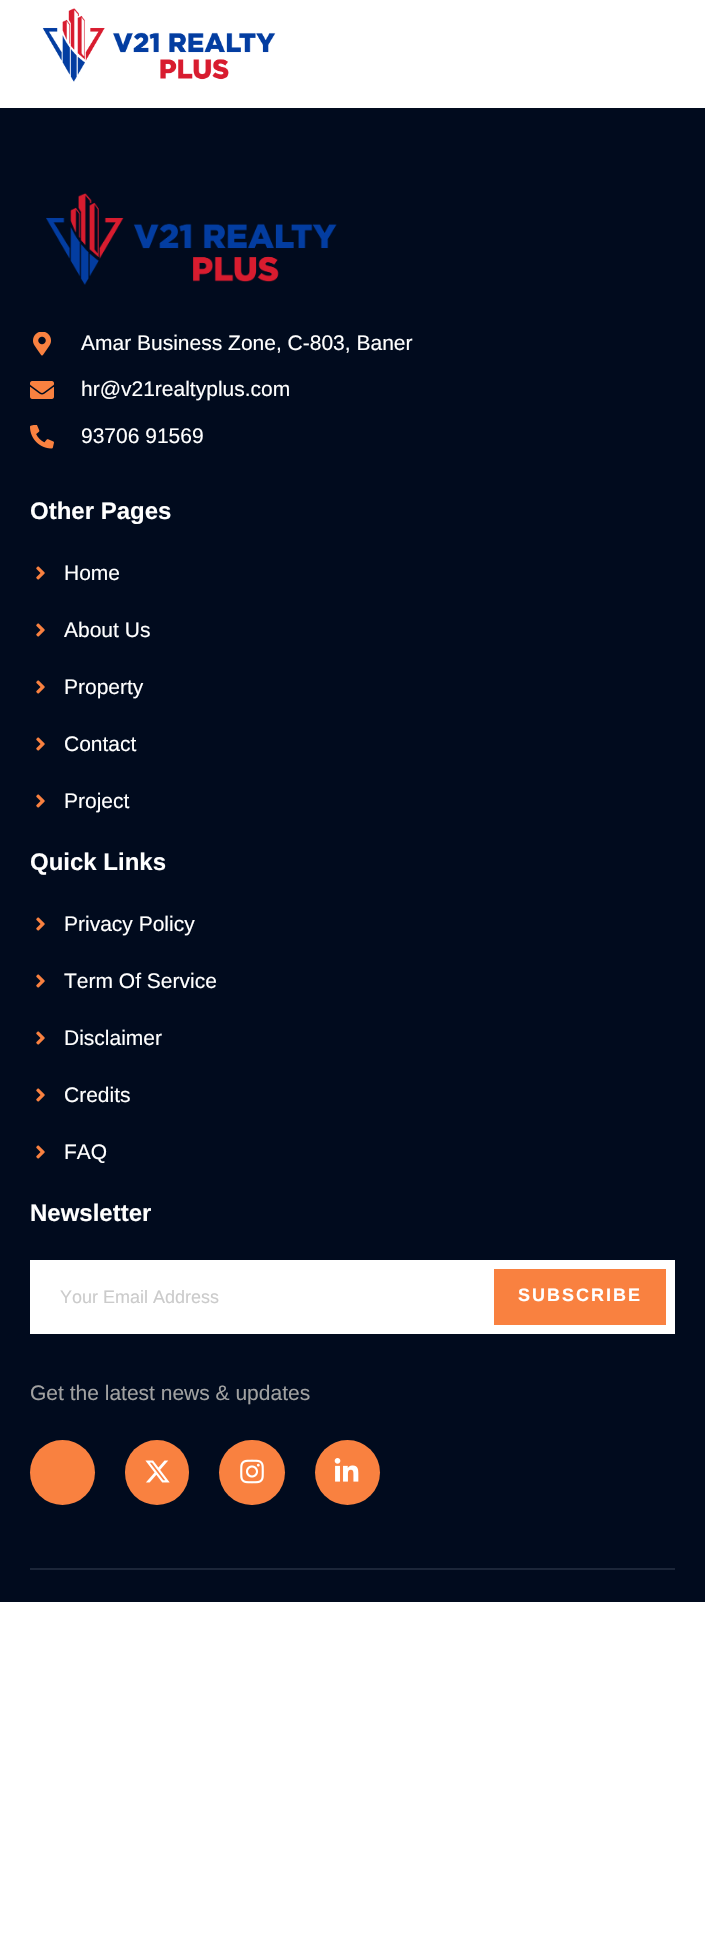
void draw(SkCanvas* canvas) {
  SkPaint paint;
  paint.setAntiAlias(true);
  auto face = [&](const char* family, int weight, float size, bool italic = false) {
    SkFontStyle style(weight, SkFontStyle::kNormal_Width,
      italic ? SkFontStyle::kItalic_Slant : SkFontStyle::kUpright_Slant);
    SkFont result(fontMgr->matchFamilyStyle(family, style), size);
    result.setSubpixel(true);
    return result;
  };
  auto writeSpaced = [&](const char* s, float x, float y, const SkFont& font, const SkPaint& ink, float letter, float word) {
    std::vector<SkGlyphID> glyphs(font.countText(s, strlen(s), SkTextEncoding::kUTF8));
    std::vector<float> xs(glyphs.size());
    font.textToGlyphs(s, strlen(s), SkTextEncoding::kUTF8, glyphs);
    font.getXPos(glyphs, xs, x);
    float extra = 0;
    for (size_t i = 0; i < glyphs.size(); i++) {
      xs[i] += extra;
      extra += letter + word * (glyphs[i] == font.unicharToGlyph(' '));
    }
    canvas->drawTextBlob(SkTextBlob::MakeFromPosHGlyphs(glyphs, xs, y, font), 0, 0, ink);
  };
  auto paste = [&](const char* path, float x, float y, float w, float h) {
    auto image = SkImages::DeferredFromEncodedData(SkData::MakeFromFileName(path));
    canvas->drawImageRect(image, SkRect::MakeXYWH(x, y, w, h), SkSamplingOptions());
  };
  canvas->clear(0xffffffff);
  paste("img/1.png", 42, 8, 234, 74);
  paint.setColor(0xff010b1e);
  canvas->drawRect(SkRect::MakeXYWH(0, 108, 705, 1494), paint);
  paste("img/2.png", 46, 193, 291, 92);
  paste("img/3.png", 33, 332, 18, 24);
  paste("img/4.png", 30, 381, 24, 18);
  paste("img/5.png", 30, 425, 24, 24);
  paste("img/6.png", 36, 566, 9, 14);
  paste("img/6.png", 36, 623, 9, 14);
  paste("img/6.png", 36, 680, 9, 14);
  paste("img/6.png", 36, 737, 9, 14);
  paste("img/6.png", 36, 794, 9, 14);
  paste("img/6.png", 36, 917, 9, 14);
  paste("img/6.png", 36, 974, 9, 14);
  paste("img/6.png", 36, 1031, 9, 14);
  paste("img/6.png", 36, 1088, 9, 14);
  paste("img/6.png", 36, 1145, 9, 14);
  paint.setColor(0xffffffff);
  canvas->drawRect(SkRect::MakeXYWH(30, 1260, 645, 74), paint);
  paint.setColor(0xfff98140);
  canvas->drawRect(SkRect::MakeXYWH(494, 1269, 172, 56), paint);
  canvas->drawCircle(62.5f, 1472.5f, 32.5f, paint);
  canvas->drawRoundRect(SkRect::MakeXYWH(125, 1440, 64, 65), 32, 32, paint);
  paste("img/7.png", 145, 1460, 25, 23);
  canvas->drawRoundRect(SkRect::MakeXYWH(219, 1440, 66, 65), 32.5f, 32.5f, paint);
  paste("img/8.png", 240, 1459, 24, 25);
  canvas->drawCircle(347.5f, 1472.5f, 32.5f, paint);
  paste("img/9.png", 334, 1458, 25, 24);
  paint.setColor(0xff1c2639);
  canvas->drawRect(SkRect::MakeXYWH(30, 1568, 645, 2), paint);
  auto f0 = face("Liberation Sans", 400, 21);
  paint.setColor(0xffffffff);
  {
    const struct { const char* s; float x, y; } items[] = {
      {"Amar Business Zone, C-803, Baner", 81, 350},
      {"hr@v21realtyplus.com", 81, 396},
      {"93706 91569", 81, 443},
    };
    for (auto [s, x, y] : items) {
      canvas->drawString(s, x, y, f0, paint);
    }
  }
  auto f1 = face("Liberation Sans", 700, 24);
  canvas->drawString("Other Pages", 30, 519, f1, paint);
  {
    const struct { const char* s; float x, y; } items[] = {
      {"Home", 64, 580},
      {"About Us", 64, 637},
      {"Property", 64, 694},
      {"Contact", 64, 751},
      {"Project", 64, 808},
    };
    for (auto [s, x, y] : items) {
      canvas->drawString(s, x, y, f0, paint);
    }
  }
  canvas->drawString("Quick Links", 30, 870, f1, paint);
  {
    const struct { const char* s; float x, y; } items[] = {
      {"Privacy Policy", 64, 931},
      {"Term Of Service", 64, 988},
      {"Disclaimer", 64, 1045},
      {"Credits", 64, 1102},
      {"FAQ", 64, 1159},
    };
    for (auto [s, x, y] : items) {
      canvas->drawString(s, x, y, f0, paint);
    }
  }
  canvas->drawString("Newsletter", 30, 1221, f1, paint);
  auto f2 = face("Liberation Sans", 400, 18);
  paint.setColor(0xffcbcbcb);
  canvas->drawString("Your Email Address", 60, 1303, f2, paint);
  auto f3 = face("Liberation Sans", 700, 18);
  paint.setColor(0xffffffff);
  writeSpaced("SUBSCRIBE", 518, 1301, f3, paint, 2, 0);
  paint.setColor(0xffa1a1a1);
  canvas->drawString("Get the latest news & updates", 30, 1400, f0, paint);
}
